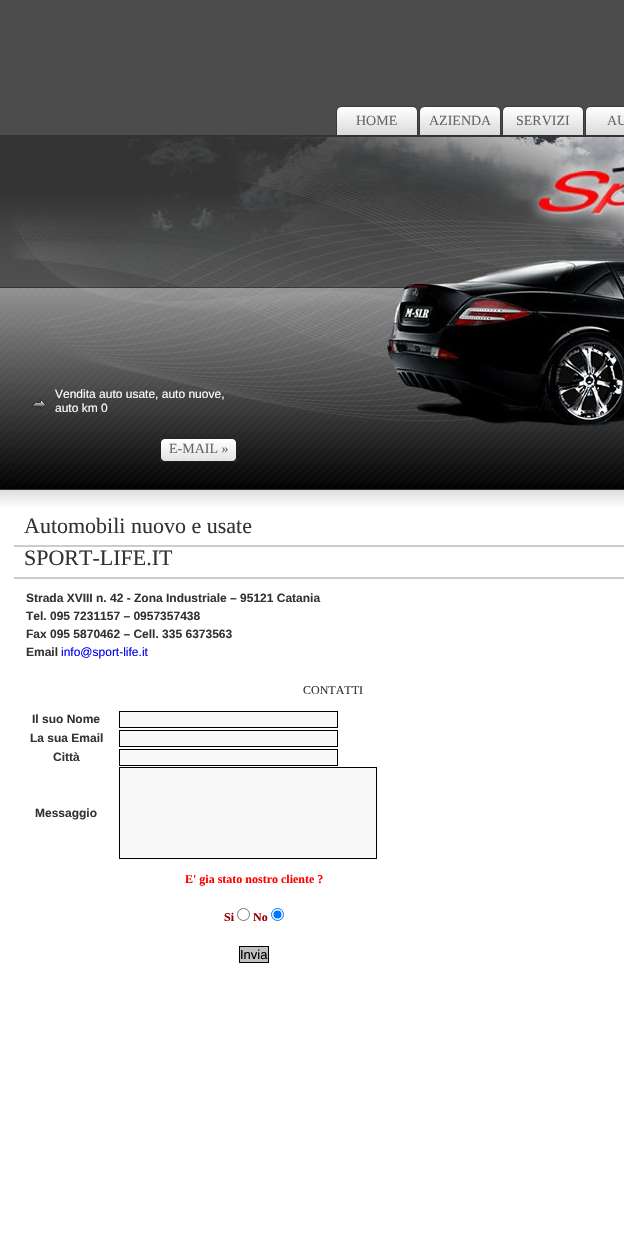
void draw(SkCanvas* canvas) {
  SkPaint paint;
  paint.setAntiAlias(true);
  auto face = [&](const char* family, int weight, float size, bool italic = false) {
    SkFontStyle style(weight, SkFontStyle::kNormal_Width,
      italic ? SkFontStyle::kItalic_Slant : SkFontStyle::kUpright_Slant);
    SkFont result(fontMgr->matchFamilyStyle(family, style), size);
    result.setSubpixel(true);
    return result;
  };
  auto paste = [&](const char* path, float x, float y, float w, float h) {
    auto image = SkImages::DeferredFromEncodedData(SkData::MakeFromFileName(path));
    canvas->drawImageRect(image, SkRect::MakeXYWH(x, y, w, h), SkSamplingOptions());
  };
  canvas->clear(0xffffffff);
  paste("img/1.png", 0, 0, 624, 507);
  paste("img/2.png", 336, 106, 82, 29);
  paste("img/2.png", 419, 106, 82, 29);
  paste("img/2.png", 502, 106, 82, 29);
  paste("img/3.png", 585, 106, 39, 29);
  paste("img/4.png", 12, 135, 612, 354);
  paste("img/5.png", 32, 399, 14, 11);
  paste("img/6.png", 160, 438, 77, 24);
  paint.setColor(0xffcccccc);
  canvas->drawRect(SkRect::MakeXYWH(14, 545, 610, 2), paint);
  canvas->drawRect(SkRect::MakeXYWH(14, 577, 610, 2), paint);
  paint.setColor(0xfff9f9f9);
  canvas->drawRect(SkRect::MakeXYWH(119.5f, 711.5f, 218, 16), paint);
  paint.setStroke(true);
  paint.setStrokeWidth(1);
  paint.setColor(0xff000000);
  canvas->drawRect(SkRect::MakeXYWH(119.5f, 711.5f, 218, 16), paint);
  paint.setStroke(false);
  paint.setColor(0xfff9f9f9);
  canvas->drawRect(SkRect::MakeXYWH(119.5f, 730.5f, 218, 16), paint);
  paint.setStroke(true);
  paint.setColor(0xff000000);
  canvas->drawRect(SkRect::MakeXYWH(119.5f, 730.5f, 218, 16), paint);
  paint.setStroke(false);
  paint.setColor(0xfff9f9f9);
  canvas->drawRect(SkRect::MakeXYWH(119.5f, 749.5f, 218, 16), paint);
  paint.setStroke(true);
  paint.setColor(0xff000000);
  canvas->drawRect(SkRect::MakeXYWH(119.5f, 749.5f, 218, 16), paint);
  paint.setStroke(false);
  paint.setColor(0xfff9f9f9);
  canvas->drawRect(SkRect::MakeXYWH(119.5f, 767.5f, 257, 91), paint);
  paint.setStroke(true);
  paint.setColor(0xff000000);
  canvas->drawRect(SkRect::MakeXYWH(119.5f, 767.5f, 257, 91), paint);
  paint.setColor(0xff767676);
  canvas->drawCircle(243.5f, 914.5f, 6, paint);
  paint.setColor(0xff0075ff);
  canvas->drawCircle(277.5f, 914.5f, 6, paint);
  paint.setStroke(false);
  canvas->drawCircle(277.5f, 914.5f, 4, paint);
  paint.setColor(0xffc0c0c0);
  canvas->drawRect(SkRect::MakeXYWH(239.5f, 946.5f, 29, 16), paint);
  paint.setStroke(true);
  paint.setColor(0xff000000);
  canvas->drawRect(SkRect::MakeXYWH(239.5f, 946.5f, 29, 16), paint);
  auto f0 = face("Liberation Serif", 400, 14);
  paint.setStroke(false);
  paint.setColor(0xff666666);
  {
    const struct { const char* s; float x, y; } items[] = {
      {"HOME", 356, 125},
      {"AZIENDA", 429, 125},
      {"SERVIZI", 516, 125},
      {"AU", 607, 125},
    };
    for (auto [s, x, y] : items) {
      canvas->drawString(s, x, y, f0, paint);
    }
  }
  auto f1 = face("Liberation Sans", 400, 12);
  paint.setColor(0xffffffff);
  canvas->drawString("Vendita auto usate, auto nuove,", 55, 398, f1, paint);
  canvas->drawString("auto km 0", 55, 412, f1, paint);
  paint.setColor(0xff666666);
  canvas->drawString("E-MAIL »", 169, 453, f0, paint);
  auto f2 = face("Liberation Serif", 400, 22);
  paint.setColor(0xff333333);
  canvas->drawString("Automobili nuovo e usate", 24, 533, f2, paint);
  canvas->drawString("SPORT-LIFE.IT", 24, 565, f2, paint);
  auto f3 = face("Liberation Sans", 700, 12);
  {
    const struct { const char* s; float x, y; } items[] = {
      {"Strada XVIII n. 42 - Zona Industriale – 95121 Catania", 26, 602},
      {"Tel. 095 7231157 – 0957357438", 26, 620},
      {"Fax 095 5870462 – Cell. 335 6373563", 26, 638},
      {"Email", 26, 656},
    };
    for (auto [s, x, y] : items) {
      canvas->drawString(s, x, y, f3, paint);
    }
  }
  paint.setColor(0xff0000ee);
  canvas->drawString("info@sport-life.it", 61, 656, f1, paint);
  auto f4 = face("Liberation Serif", 400, 12);
  paint.setColor(0xff333333);
  canvas->drawString("CONTATTI", 303, 694, f4, paint);
  {
    const struct { const char* s; float x, y; } items[] = {
      {"Il suo Nome", 32, 723},
      {"La sua Email", 30, 742},
      {"Città", 53, 761},
      {"Messaggio", 35, 817},
    };
    for (auto [s, x, y] : items) {
      canvas->drawString(s, x, y, f3, paint);
    }
  }
  auto f5 = face("Liberation Serif", 700, 12);
  paint.setColor(0xffff0000);
  canvas->drawString("E' gia stato nostro cliente ?", 185, 883, f5, paint);
  paint.setColor(0xff990000);
  canvas->drawString("Si", 224, 921, f5, paint);
  canvas->drawString("No", 253, 921, f5, paint);
  auto f6 = face("Liberation Sans", 400, 13);
  paint.setColor(0xff000000);
  canvas->drawString("Invia", 240, 959, f6, paint);
}
